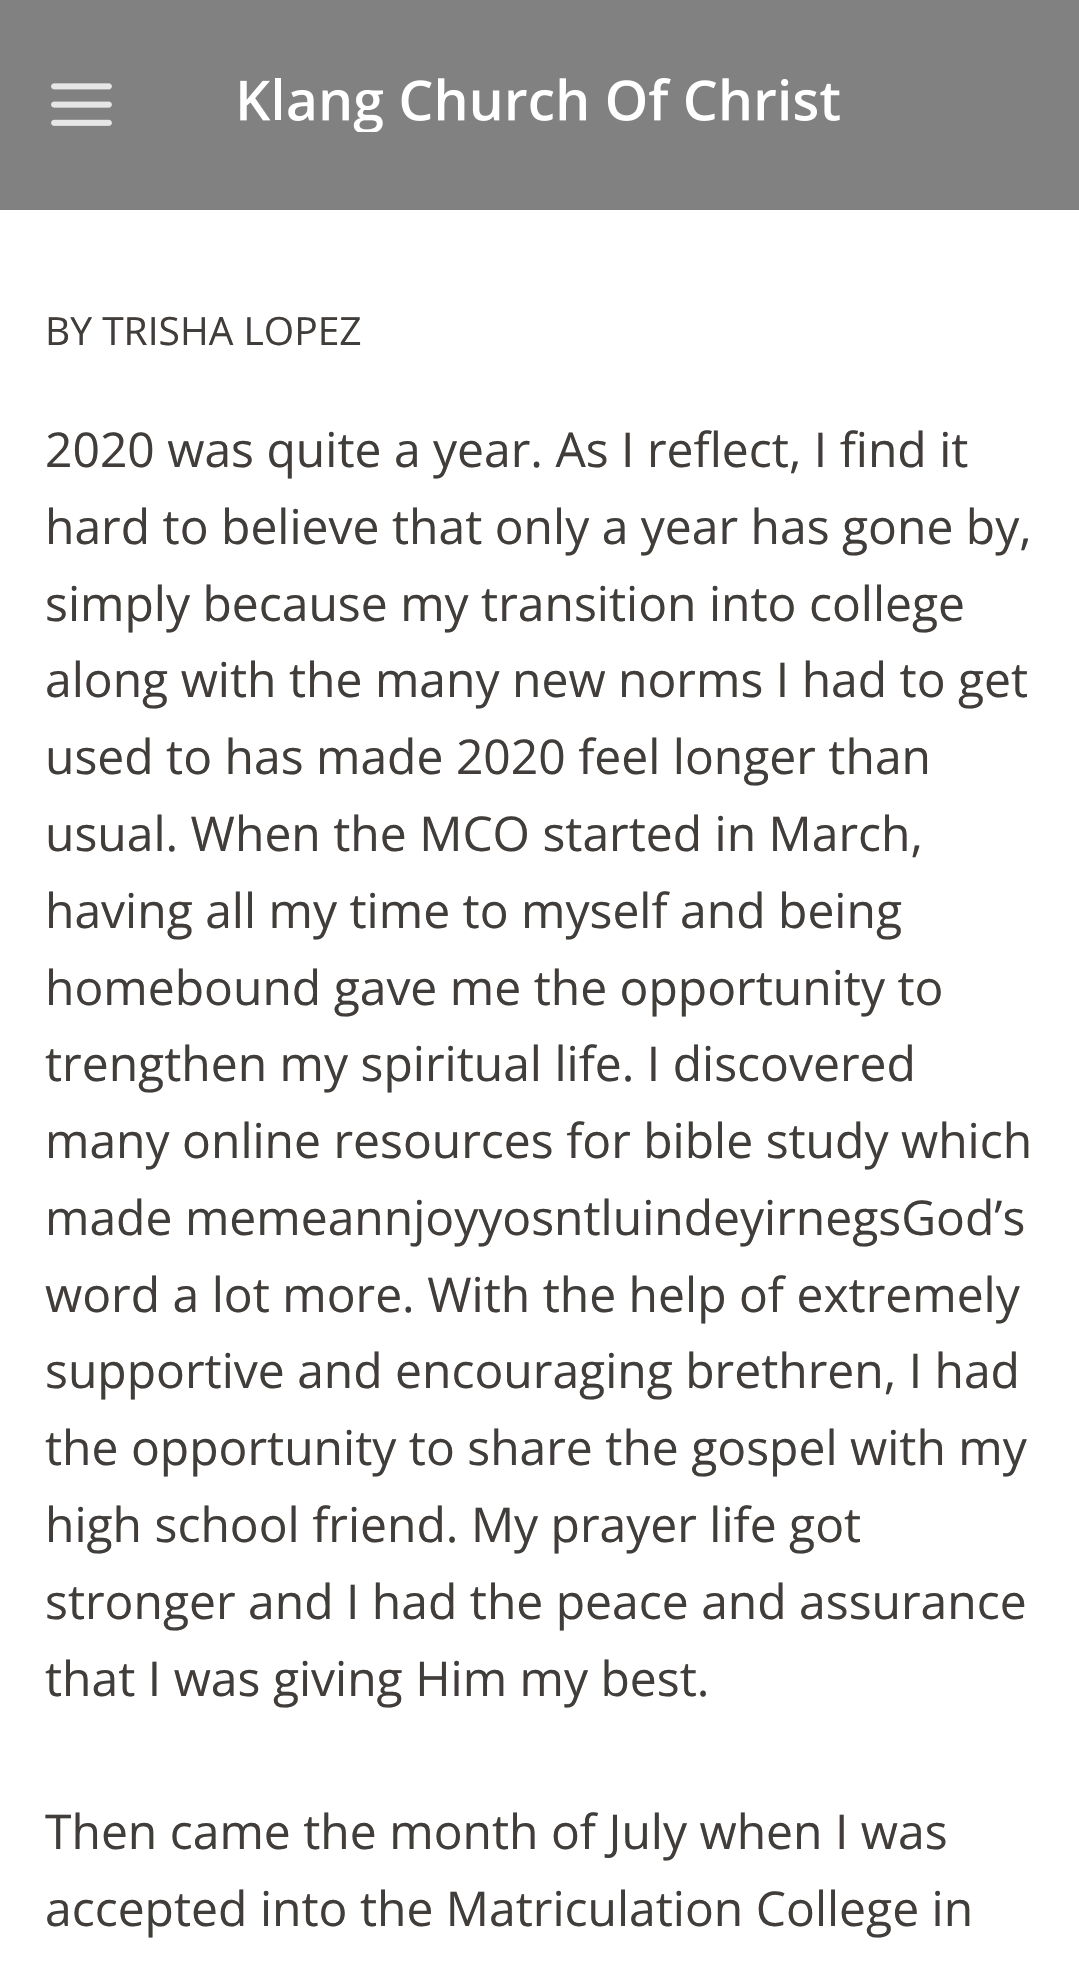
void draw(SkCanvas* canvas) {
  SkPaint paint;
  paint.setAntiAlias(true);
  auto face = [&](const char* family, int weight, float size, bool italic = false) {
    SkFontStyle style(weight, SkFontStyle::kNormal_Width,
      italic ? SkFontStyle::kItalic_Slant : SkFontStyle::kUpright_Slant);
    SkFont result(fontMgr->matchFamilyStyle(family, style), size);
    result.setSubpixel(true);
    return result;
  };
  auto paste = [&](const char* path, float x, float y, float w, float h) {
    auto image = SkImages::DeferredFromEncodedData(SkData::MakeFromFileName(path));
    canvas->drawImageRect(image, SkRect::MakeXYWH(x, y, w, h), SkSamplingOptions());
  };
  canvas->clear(0xffffffff);
  paint.setColor(0xff818181);
  canvas->drawRect(SkRect::MakeXYWH(0, 0, 1079, 210), paint);
  paste("img/1.png", 51, 83, 61, 43);
  paste("img/2.png", 240, 78, 600, 54);
  auto f0 = face("Open Sans", 400, 39);
  paint.setColor(0xff403d3a);
  canvas->drawString("BY TRISHA LOPEZ", 45, 345, f0, paint);
  auto f1 = face("Open Sans", 400, 48);
  {
    const struct { const char* s; float x, y; } items[] = {
      {"2020 was quite a year. As I reflect, I find it", 45, 467},
      {"hard to believe that only a year has gone by,", 45, 544},
      {"simply because my transition into college", 45, 621},
      {"along with the many new norms I had to get", 45, 697},
      {"used to has made 2020 feel longer than", 45, 774},
      {"usual. When the MCO started in March,", 45, 851},
      {"having all my time to myself and being", 45, 928},
      {"homebound gave me the opportunity to", 45, 1005},
      {"trengthen my spiritual life. I discovered", 45, 1081},
      {"many online resources for bible study which", 45, 1158},
      {"made memeannjoyyosntluindeyirnegsGod’s", 45, 1235},
      {"word a lot more. With the help of extremely", 45, 1312},
      {"supportive and encouraging brethren, I had", 45, 1388},
      {"the opportunity to share the gospel with my", 45, 1465},
      {"high school friend. My prayer life got", 45, 1542},
      {"stronger and I had the peace and assurance", 45, 1619},
      {"that I was giving Him my best.", 45, 1696},
      {"Then came the month of July when I was", 45, 1849},
      {"accepted into the Matriculation College in", 45, 1926},
    };
    for (auto [s, x, y] : items) {
      canvas->drawString(s, x, y, f1, paint);
    }
  }
}
